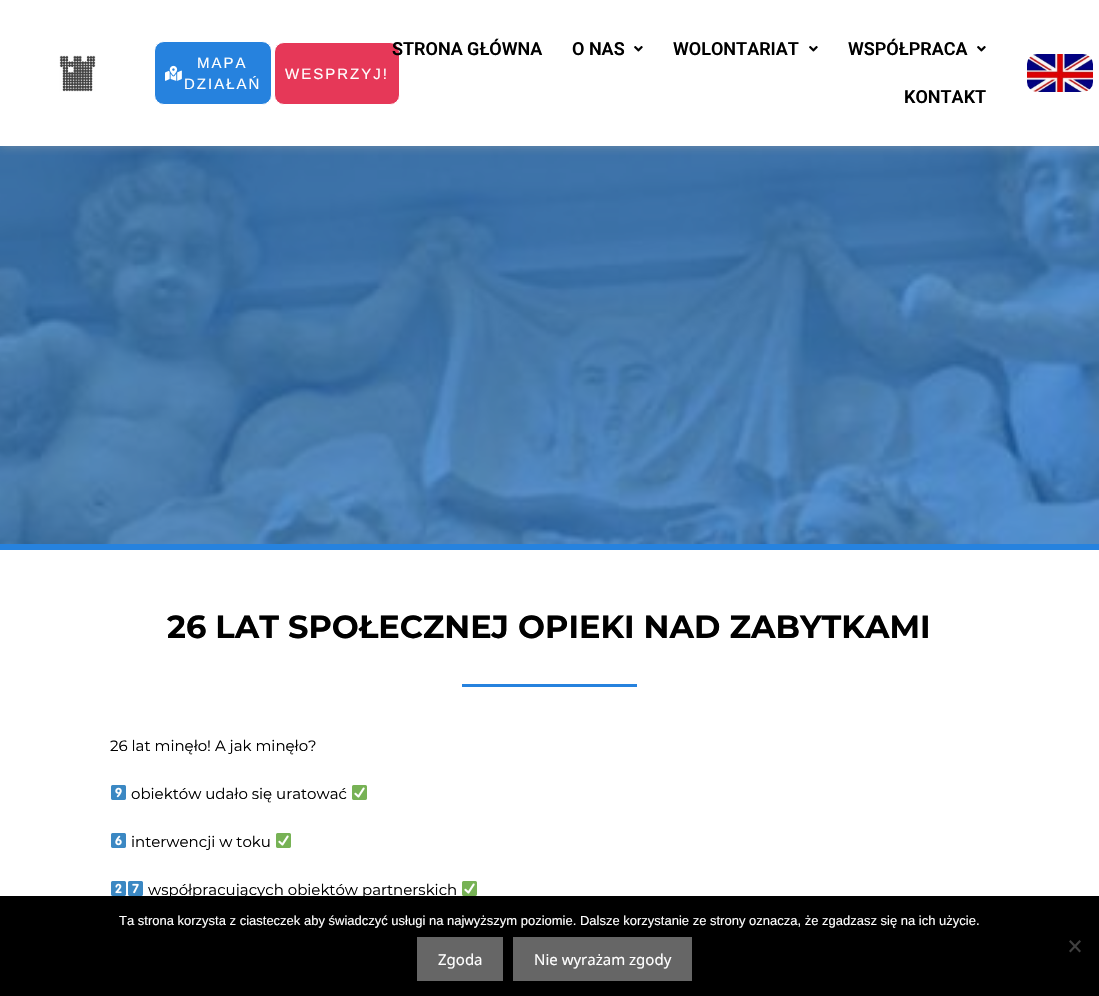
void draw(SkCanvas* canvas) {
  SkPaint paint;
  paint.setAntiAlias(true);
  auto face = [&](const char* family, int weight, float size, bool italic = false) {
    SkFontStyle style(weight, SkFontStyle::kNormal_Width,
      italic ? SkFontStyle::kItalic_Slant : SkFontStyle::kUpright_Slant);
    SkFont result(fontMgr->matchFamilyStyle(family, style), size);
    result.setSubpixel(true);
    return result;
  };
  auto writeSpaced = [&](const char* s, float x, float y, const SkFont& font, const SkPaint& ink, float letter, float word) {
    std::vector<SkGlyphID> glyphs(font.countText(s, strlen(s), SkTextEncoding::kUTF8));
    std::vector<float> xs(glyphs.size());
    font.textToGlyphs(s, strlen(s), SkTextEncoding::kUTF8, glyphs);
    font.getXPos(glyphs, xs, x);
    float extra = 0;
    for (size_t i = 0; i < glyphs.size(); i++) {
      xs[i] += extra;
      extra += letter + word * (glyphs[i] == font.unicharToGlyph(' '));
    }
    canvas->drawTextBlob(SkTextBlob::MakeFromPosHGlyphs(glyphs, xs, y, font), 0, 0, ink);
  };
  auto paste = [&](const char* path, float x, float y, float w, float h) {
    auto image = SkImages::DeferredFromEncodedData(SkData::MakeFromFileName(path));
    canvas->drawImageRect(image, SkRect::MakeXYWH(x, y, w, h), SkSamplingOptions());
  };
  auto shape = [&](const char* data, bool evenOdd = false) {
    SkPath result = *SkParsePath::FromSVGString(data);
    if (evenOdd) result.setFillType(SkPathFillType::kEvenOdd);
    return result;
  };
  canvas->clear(0xffffffff);
  paste("img/5.png", 0, 146, 1099, 398);
  canvas->save();
  canvas->clipRect(SkRect::MakeXYWH(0, 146, 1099, 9));
  paint.setColor(0x80a3a3a3);
  paint.setMaskFilter(SkMaskFilter::MakeBlur(kNormal_SkBlurStyle, 5));
  canvas->drawRect(SkRect::MakeXYWH(0, 0, 1099, 146), paint);
  paint.setMaskFilter(nullptr);
  canvas->restore();
  paste("img/1.png", 59, 55, 37, 37);
  paint.setColor(0xff2682de);
  canvas->drawRoundRect(SkRect::MakeXYWH(154.5f, 41.5f, 117, 63), 9.5f, 9.5f, paint);
  paint.setStroke(true);
  paint.setStrokeWidth(1);
  paint.setColor(0xffffffff);
  canvas->drawRoundRect(SkRect::MakeXYWH(154.5f, 41.5f, 117, 63), 9.5f, 9.5f, paint);
  paste("img/2.png", 165, 65, 17, 16);
  paint.setStroke(false);
  paint.setColor(0xffe63858);
  canvas->drawRoundRect(SkRect::MakeXYWH(274.5f, 42.5f, 125, 62), 9.5f, 9.5f, paint);
  paint.setStroke(true);
  paint.setColor(0xffffffff);
  canvas->drawRoundRect(SkRect::MakeXYWH(274.5f, 42.5f, 125, 62), 9.5f, 9.5f, paint);
  paste("img/3.png", 634, 46, 9, 6);
  paste("img/3.png", 809, 46, 9, 6);
  paste("img/3.png", 977, 46, 9, 6);
  paste("img/4.png", 1027, 54, 66, 38);
  paint.setStroke(false);
  paint.setColor(0xff2682de);
  canvas->drawRect(SkRect::MakeXYWH(0, 544, 1099, 6), paint);
  canvas->drawRect(SkRect::MakeXYWH(462, 684, 175, 3), paint);
  paste("img/6.png", 111, 785, 15, 15);
  paste("img/7.png", 352, 785, 15, 15);
  paste("img/8.png", 111, 833, 15, 15);
  paste("img/7.png", 276, 833, 15, 15);
  paste("img/9.png", 111, 881, 15, 15);
  paste("img/10.png", 128, 881, 15, 15);
  paste("img/7.png", 462, 881, 15, 15);
  paint.setColor(0xff000000);
  canvas->drawRect(SkRect::MakeXYWH(0, 896, 1099, 100), paint);
  paint.setColor(0xff404040);
  canvas->drawPath(shape("M1079.5 940L1081 941.5L1070.5 952.5L1069 951Z"), paint);
  canvas->drawPath(shape("M1069 941.5L1070.5 940L1081 951L1079.5 952.5Z"), paint);
  paint.setColor(0xff666666);
  canvas->drawRect(SkRect::MakeXYWH(417, 937, 86, 44), paint);
  canvas->drawRect(SkRect::MakeXYWH(513, 937, 179, 44), paint);
  auto f0 = face("Liberation Sans", 400, 15);
  paint.setColor(0xffffffff);
  {
    const struct { const char* s; float x, y; } items[] = {
      {"MAPA", 197, 68},
      {"DZIAŁAŃ", 184, 89},
      {"WESPRZYJ!", 285, 79},
    };
    for (auto [s, x, y] : items) {
      writeSpaced(s, x, y, f0, paint, 2, 0);
    }
  }
  auto f1 = face("Roboto", 600, 18);
  paint.setColor(0xff000000);
  {
    const struct { const char* s; float x, y; } items[] = {
      {"STRONA GŁÓWNA", 392, 55},
      {"O NAS", 572, 55},
      {"WOLONTARIAT", 673, 55},
      {"WSPÓŁPRACA", 848, 55},
      {"KONTAKT", 904, 103},
    };
    for (auto [s, x, y] : items) {
      canvas->drawString(s, x, y, f1, paint);
    }
  }
  auto f2 = face("Montserrat", 700, 32);
  canvas->drawString("26 LAT SPOŁECZNEJ OPIEKI NAD ZABYTKAMI", 167, 638, f2, paint);
  auto f3 = face("Montserrat", 400, 15);
  {
    const struct { const char* s; float x, y; } items[] = {
      {"26 lat minęło! A jak minęło?", 110, 751},
      {"obiektów udało się uratować", 131, 799},
      {"interwencji w toku", 131, 847},
      {"współpracujących obiektów partnerskich", 148, 895},
    };
    for (auto [s, x, y] : items) {
      canvas->drawString(s, x, y, f3, paint);
    }
  }
  auto f4 = face("Liberation Sans", 400, 13);
  paint.setColor(0xffffffff);
  canvas->drawString("Ta strona korzysta z ciasteczek aby świadczyć usługi na najwyższym poziomie. Dalsze korzystanie ze strony oznacza, że zgadzasz się na ich użycie.", 119, 925, f4, paint);
  auto f5 = face("Noto Sans", 400, 15);
  canvas->drawString("Zgoda", 438, 965, f5, paint);
  canvas->drawString("Nie wyrażam zgody", 534, 965, f5, paint);
}
